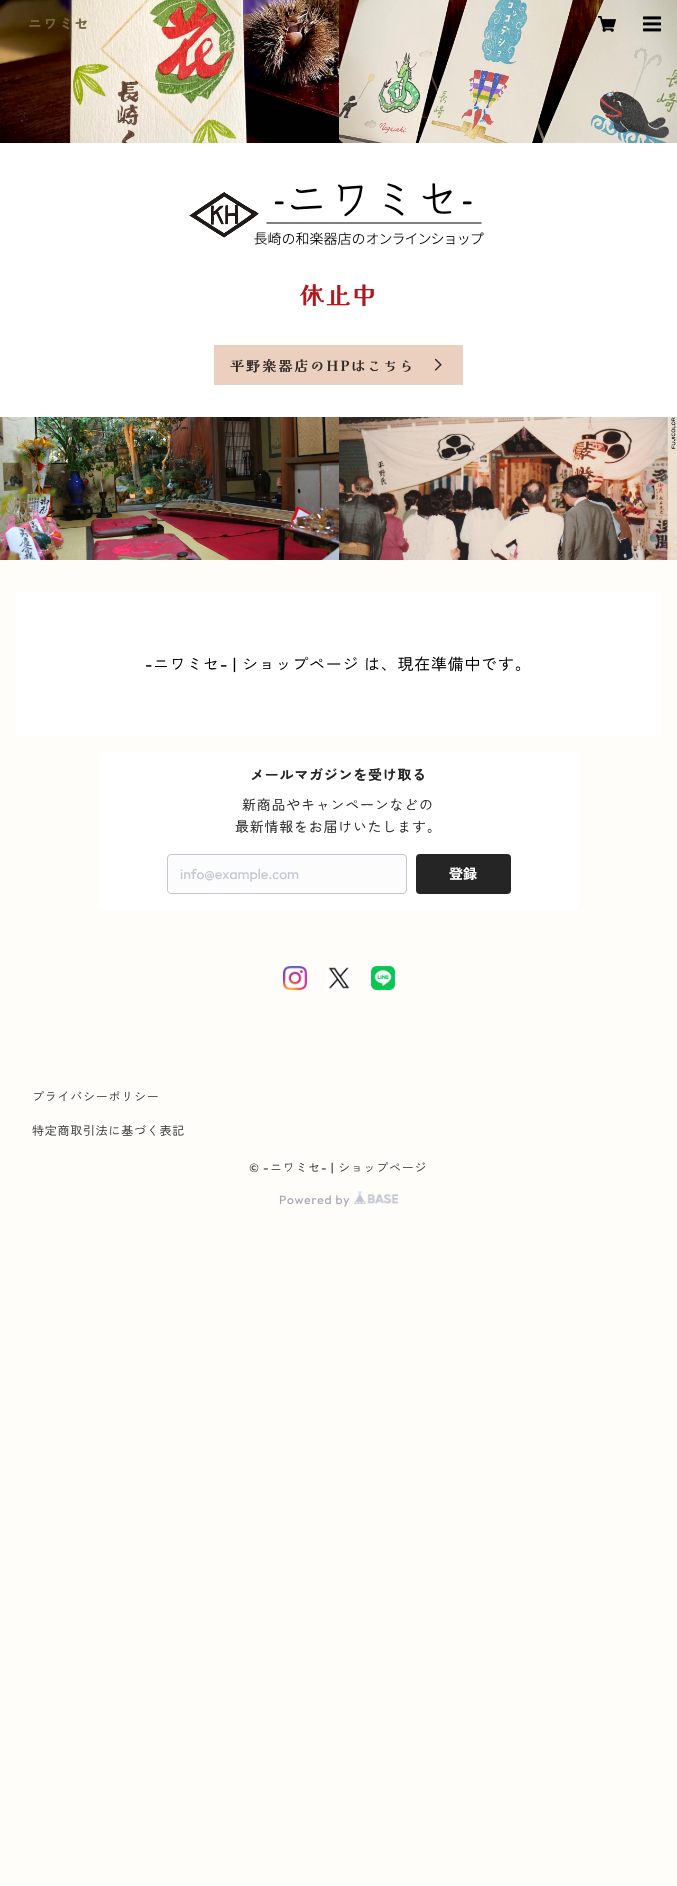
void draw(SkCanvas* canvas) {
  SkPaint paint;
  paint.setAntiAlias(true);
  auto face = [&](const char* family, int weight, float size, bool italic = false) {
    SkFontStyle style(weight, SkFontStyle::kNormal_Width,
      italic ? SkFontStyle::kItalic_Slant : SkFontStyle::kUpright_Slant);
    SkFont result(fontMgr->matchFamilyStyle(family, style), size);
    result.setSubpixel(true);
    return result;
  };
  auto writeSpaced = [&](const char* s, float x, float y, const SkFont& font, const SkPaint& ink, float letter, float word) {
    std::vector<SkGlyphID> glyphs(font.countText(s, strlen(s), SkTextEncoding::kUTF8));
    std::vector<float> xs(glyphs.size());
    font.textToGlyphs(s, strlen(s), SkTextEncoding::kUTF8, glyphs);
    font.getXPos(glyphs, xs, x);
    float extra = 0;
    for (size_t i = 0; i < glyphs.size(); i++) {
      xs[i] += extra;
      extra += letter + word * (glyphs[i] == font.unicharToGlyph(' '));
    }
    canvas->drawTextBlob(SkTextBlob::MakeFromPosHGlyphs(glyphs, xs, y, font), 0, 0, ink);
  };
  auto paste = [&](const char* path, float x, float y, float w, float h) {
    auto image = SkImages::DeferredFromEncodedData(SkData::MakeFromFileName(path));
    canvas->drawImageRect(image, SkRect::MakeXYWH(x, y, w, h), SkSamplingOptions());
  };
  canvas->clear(0xfffffdfa);
  paste("img/4.png", 339, 0, 338, 143);
  paste("img/1.png", 598, 16, 18, 16);
  paste("img/2.png", 643, 16, 18, 16);
  paste("img/3.png", 0, 0, 339, 143);
  paint.setColor(0xffffffff);
  canvas->drawRect(SkRect::MakeXYWH(0, 143, 677, 274), paint);
  paste("img/5.png", 189, 183, 295, 62);
  paint.setColor(0xffebd0c0);
  canvas->drawRect(SkRect::MakeXYWH(214, 345, 249, 40), paint);
  paste("img/6.png", 434, 358, 8, 13);
  paste("img/7.png", 0, 417, 339, 143);
  paste("img/8.png", 339, 417, 338, 143);
  paint.setColor(0xffffffff);
  canvas->drawRect(SkRect::MakeXYWH(16, 592, 645, 144), paint);
  canvas->drawRoundRect(SkRect::MakeXYWH(99, 752, 480, 158), 2, 2, paint);
  paint.setColor(0xfffcfcfd);
  canvas->drawRoundRect(SkRect::MakeXYWH(167.5f, 854.5f, 239, 39), 3.5f, 3.5f, paint);
  paint.setStroke(true);
  paint.setStrokeWidth(1);
  paint.setColor(0xffc2c8d2);
  canvas->drawRoundRect(SkRect::MakeXYWH(167.5f, 854.5f, 239, 39), 3.5f, 3.5f, paint);
  paint.setStroke(false);
  paint.setColor(0xff252525);
  canvas->drawRoundRect(SkRect::MakeXYWH(416, 854, 95, 40), 4, 4, paint);
  paste("img/9.png", 283, 966, 24, 24);
  paste("img/10.png", 327, 966, 24, 24);
  paste("img/11.png", 371, 966, 24, 24);
  paste("img/12.png", 354, 1191, 44, 13);
  auto f0 = face("Zen Kaku Gothic New", 700, 14);
  paint.setColor(0xff756142);
  writeSpaced("ニワミセ", 28, 29, f0, paint, 1.5f, 0);
  auto f1 = face("Kaisei Opti", 700, 24);
  paint.setColor(0xffad1a20);
  writeSpaced("休止中", 300, 304, f1, paint, 2, 0);
  auto f2 = face("Kaisei Opti", 700, 14);
  paint.setColor(0xff2f2a26);
  writeSpaced("平野楽器店のHPはこちら", 230, 371, f2, paint, 2.1f, 0);
  auto f3 = face("Outfit", 400, 16);
  paint.setColor(0xff000000);
  writeSpaced("-", 145, 670, f3, paint, 0.75f, 0);
  auto f4 = face("Zen Kaku Gothic New", 400, 16);
  writeSpaced("ニワミセ", 153, 670, f4, paint, 0.75f, 0);
  writeSpaced("- |", 220, 670, f3, paint, 0.75f, 0);
  writeSpaced("ショップページ", 242, 670, f4, paint, 0.75f, 0);
  writeSpaced("は、現在準備中です。", 364, 670, f4, paint, 0.75f, 0);
  paint.setColor(0xff252525);
  writeSpaced("メールマガジンを受け取る", 250, 780, f0, paint, 0.75f, 0);
  auto f5 = face("Zen Kaku Gothic New", 400, 14);
  writeSpaced("新商品やキャンペーンなどの", 242, 810, f5, paint, 0.75f, 0);
  writeSpaced("最新情報をお届けいたします。", 235, 832, f5, paint, 0.75f, 0);
  auto f6 = face("Outfit", 400, 14);
  paint.setColor(0xffc2c8d2);
  canvas->drawString("info@example.com", 180, 879, f6, paint);
  paint.setColor(0xffffffff);
  canvas->drawString("登録", 449, 879, f0, paint);
  auto f7 = face("Zen Kaku Gothic New", 400, 12);
  paint.setColor(0xff383d3d);
  writeSpaced("プライバシーポリシー", 32, 1101, f7, paint, 0.75f, 0);
  writeSpaced("特定商取引法に基づく表記", 32, 1135, f7, paint, 0.75f, 0);
  auto f8 = face("Outfit", 400, 12);
  writeSpaced("© -", 249, 1172, f8, paint, 0.75f, 0);
  writeSpaced("ニワミセ", 270, 1172, f7, paint, 0.75f, 0);
  writeSpaced("- |", 321, 1172, f8, paint, 0.75f, 0);
  writeSpaced("ショップページ", 338, 1172, f7, paint, 0.75f, 0);
  paint.setColor(0xffa0a7b4);
  writeSpaced("Powered by", 279, 1204, f8, paint, 0.75f, 0);
}
